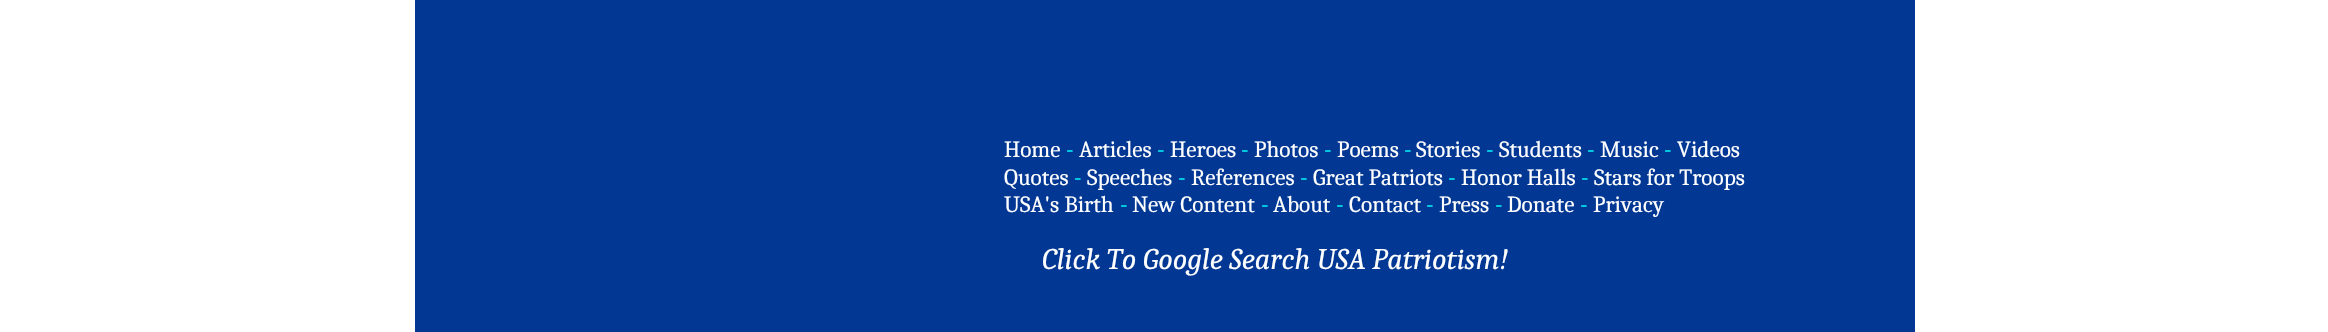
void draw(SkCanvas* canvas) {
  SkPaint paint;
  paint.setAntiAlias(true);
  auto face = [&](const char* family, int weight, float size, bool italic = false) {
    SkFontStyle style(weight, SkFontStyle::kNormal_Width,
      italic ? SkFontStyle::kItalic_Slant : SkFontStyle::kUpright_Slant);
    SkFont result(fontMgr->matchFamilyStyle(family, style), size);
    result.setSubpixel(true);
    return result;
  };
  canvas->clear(0xffffffff);
  paint.setColor(0xff023893);
  canvas->drawRect(SkRect::MakeXYWH(415, 0, 1500, 332), paint);
  auto f0 = face("Caladea", 400, 23.25f);
  paint.setColor(0xffffffff);
  canvas->drawString("Home", 1004, 157, f0, paint);
  paint.setColor(0xff00ffff);
  canvas->drawString("-", 1066, 157, f0, paint);
  paint.setColor(0xffffffff);
  canvas->drawString("Articles", 1079, 157, f0, paint);
  paint.setColor(0xff00ffff);
  canvas->drawString("-", 1157, 157, f0, paint);
  paint.setColor(0xffffffff);
  canvas->drawString("Heroes", 1170, 157, f0, paint);
  paint.setColor(0xff00ffff);
  canvas->drawString("-", 1241, 157, f0, paint);
  paint.setColor(0xffffffff);
  canvas->drawString("Photos", 1254, 157, f0, paint);
  paint.setColor(0xff00ffff);
  canvas->drawString("-", 1324, 157, f0, paint);
  paint.setColor(0xffffffff);
  canvas->drawString("Poems", 1337, 157, f0, paint);
  paint.setColor(0xff00ffff);
  canvas->drawString("-", 1404, 157, f0, paint);
  paint.setColor(0xffffffff);
  canvas->drawString("Stories", 1416, 157, f0, paint);
  paint.setColor(0xff00ffff);
  canvas->drawString("-", 1486, 157, f0, paint);
  paint.setColor(0xffffffff);
  canvas->drawString("Students", 1499, 157, f0, paint);
  paint.setColor(0xff00ffff);
  canvas->drawString("-", 1587, 157, f0, paint);
  paint.setColor(0xffffffff);
  canvas->drawString("Music", 1600, 157, f0, paint);
  paint.setColor(0xff00ffff);
  canvas->drawString("-", 1664, 157, f0, paint);
  paint.setColor(0xffffffff);
  canvas->drawString("Videos", 1677, 157, f0, paint);
  canvas->drawString("Quotes", 1004, 185, f0, paint);
  paint.setColor(0xff00ffff);
  canvas->drawString("-", 1074, 185, f0, paint);
  paint.setColor(0xffffffff);
  canvas->drawString("Speeches", 1087, 185, f0, paint);
  paint.setColor(0xff00ffff);
  canvas->drawString("-", 1178, 185, f0, paint);
  paint.setColor(0xffffffff);
  canvas->drawString("References", 1191, 185, f0, paint);
  paint.setColor(0xff00ffff);
  canvas->drawString("-", 1300, 185, f0, paint);
  paint.setColor(0xffffffff);
  canvas->drawString("Great Patriots", 1313, 185, f0, paint);
  paint.setColor(0xff00ffff);
  canvas->drawString("-", 1448, 185, f0, paint);
  paint.setColor(0xffffffff);
  canvas->drawString("Honor Halls", 1461, 185, f0, paint);
  paint.setColor(0xff00ffff);
  canvas->drawString("-", 1581, 185, f0, paint);
  paint.setColor(0xffffffff);
  canvas->drawString("Stars for Troops", 1594, 185, f0, paint);
  canvas->drawString("USA's Birth", 1004, 212, f0, paint);
  paint.setColor(0xff00ffff);
  canvas->drawString("-", 1120, 212, f0, paint);
  paint.setColor(0xffffffff);
  canvas->drawString("New Content", 1132, 212, f0, paint);
  paint.setColor(0xff00ffff);
  canvas->drawString("-", 1261, 212, f0, paint);
  paint.setColor(0xffffffff);
  canvas->drawString("About", 1273, 212, f0, paint);
  paint.setColor(0xff00ffff);
  canvas->drawString("-", 1336, 212, f0, paint);
  paint.setColor(0xffffffff);
  canvas->drawString("Contact", 1349, 212, f0, paint);
  paint.setColor(0xff00ffff);
  canvas->drawString("-", 1426, 212, f0, paint);
  paint.setColor(0xffffffff);
  canvas->drawString("Press", 1439, 212, f0, paint);
  paint.setColor(0xff00ffff);
  canvas->drawString("-", 1495, 212, f0, paint);
  paint.setColor(0xffffffff);
  canvas->drawString("Donate", 1507, 212, f0, paint);
  paint.setColor(0xff00ffff);
  canvas->drawString("-", 1580, 212, f0, paint);
  paint.setColor(0xffffffff);
  canvas->drawString("Privacy", 1593, 212, f0, paint);
  auto f1 = face("Caladea", 400, 30, true);
  canvas->drawString("Click To Google Search USA Patriotism!", 1042, 269, f1, paint);
}
